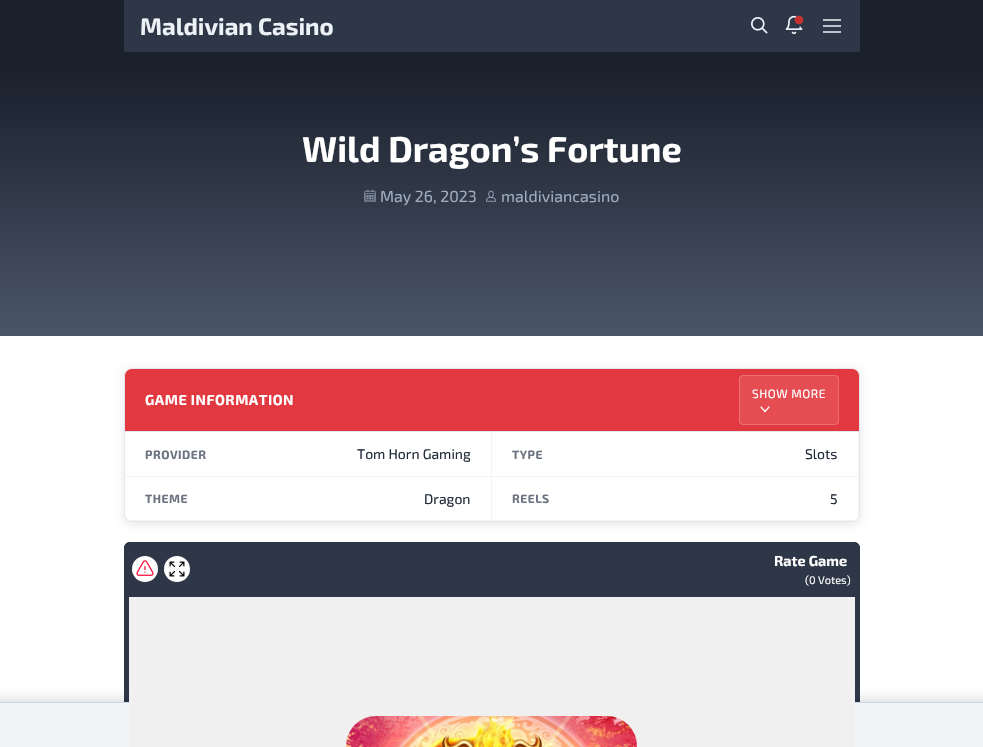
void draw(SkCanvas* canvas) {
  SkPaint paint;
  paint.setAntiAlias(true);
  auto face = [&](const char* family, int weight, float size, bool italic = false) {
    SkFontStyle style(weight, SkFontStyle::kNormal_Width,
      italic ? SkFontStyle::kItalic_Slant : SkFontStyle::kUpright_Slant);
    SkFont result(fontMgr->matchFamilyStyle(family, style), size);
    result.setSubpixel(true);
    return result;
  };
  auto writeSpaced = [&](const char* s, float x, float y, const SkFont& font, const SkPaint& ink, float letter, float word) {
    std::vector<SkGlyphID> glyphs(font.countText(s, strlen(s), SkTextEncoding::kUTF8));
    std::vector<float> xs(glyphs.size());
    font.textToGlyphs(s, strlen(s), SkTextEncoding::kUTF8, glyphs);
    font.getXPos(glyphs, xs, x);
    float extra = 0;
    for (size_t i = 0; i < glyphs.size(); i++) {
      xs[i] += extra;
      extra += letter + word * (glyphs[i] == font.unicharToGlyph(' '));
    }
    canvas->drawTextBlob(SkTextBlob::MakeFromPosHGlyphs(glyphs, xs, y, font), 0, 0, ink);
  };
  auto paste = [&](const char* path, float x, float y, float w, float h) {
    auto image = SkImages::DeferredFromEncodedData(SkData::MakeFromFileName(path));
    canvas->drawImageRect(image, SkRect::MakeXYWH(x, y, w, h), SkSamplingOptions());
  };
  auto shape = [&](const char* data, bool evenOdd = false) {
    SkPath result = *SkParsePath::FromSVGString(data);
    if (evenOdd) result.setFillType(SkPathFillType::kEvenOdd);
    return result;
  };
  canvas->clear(0xffffffff);
  {
    const SkColor colors[] = {0xff1a202c, 0xff4a5568};
    const float stops[] = {0.2f, 1};
    const SkPoint ends[] = {{492, 0}, {492, 336}};
    paint.setShader(SkGradientShader::MakeLinear(ends, colors, stops, 2, SkTileMode::kClamp));
    paint.setAlpha(255);
  }
  canvas->drawRect(SkRect::MakeXYWH(0, 0, 983, 336), paint);
  paint.setShader(nullptr);
  paint.setColor(0xff2d3748);
  canvas->drawRect(SkRect::MakeXYWH(124, 0, 736, 52), paint);
  paste("img/1.png", 751, 17, 17, 17);
  paste("img/2.png", 785, 15, 19, 20);
  paste("img/3.png", 823, 19, 18, 14);
  paste("img/4.png", 364, 190, 12, 12);
  paste("img/5.png", 486, 190, 10, 12);
  paint.setColor(0x1a000000);
  paint.setMaskFilter(SkMaskFilter::MakeBlur(kNormal_SkBlurStyle, 5));
  canvas->drawRoundRect(SkRect::MakeXYWH(124, 370, 736, 154), 8, 8, paint);
  paint.setMaskFilter(nullptr);
  paint.setColor(0xffffffff);
  canvas->drawRoundRect(SkRect::MakeXYWH(124.5f, 368.5f, 735, 153), 7.5f, 7.5f, paint);
  paint.setStroke(true);
  paint.setStrokeWidth(1);
  paint.setColor(0xffe5e7eb);
  canvas->drawRoundRect(SkRect::MakeXYWH(124.5f, 368.5f, 735, 153), 7.5f, 7.5f, paint);
  paint.setStroke(false);
  paint.setColor(0xffe23940);
  canvas->drawPath(shape("M132 369H852C856 369 859 372 859 376V431H125V376C125 372 128 369 132 369Z"), paint);
  paint.setColor(0xffe5e7eb);
  canvas->drawRect(SkRect::MakeXYWH(125, 431, 734, 1), paint);
  paint.setColor(0xffe54d53);
  canvas->drawRoundRect(SkRect::MakeXYWH(739, 375, 100, 50), 4, 4, paint);
  paint.setStroke(true);
  paint.setColor(0x33ffffff);
  canvas->drawRoundRect(SkRect::MakeXYWH(739.5f, 375.5f, 99, 49), 3.5f, 3.5f, paint);
  paint.setStrokeWidth(1.2f);
  paint.setStrokeCap(SkPaint::kRound_Cap);
  paint.setStrokeJoin(SkPaint::kRound_Join);
  paint.setColor(0xffffffff);
  canvas->drawPath(shape("M769 407L765 411.5L761 407"), paint);
  paint.setStroke(false);
  {
    const struct { float x, y, w, h; SkColor color; } items[] = {
      {491, 432, 1, 89, 0xfff3f4f6},
      {125, 476, 367, 1, 0xfff3f4f6},
      {858, 432, 1, 45, 0xfff3f4f6},
      {492, 476, 367, 1, 0xfff3f4f6},
    };
    for (auto [x, y, w, h, color] : items) {
      paint.setColor(color);
      canvas->drawRect(SkRect::MakeXYWH(x, y, w, h), paint);
    }
  }
  canvas->save();
  canvas->clipPath(shape("M132 369H852C856 369 859 372 859 376V514C859 518 856 521 852 521H132C128 521 125 518 125 514V376C125 372 128 369 132 369Z"), true);
  {
    const struct { float x, y, w, h; SkColor color; } items[] = {
      {125, 520, 367, 1, 0xfff3f4f6},
      {858, 477, 1, 44, 0xfff3f4f6},
      {492, 520, 367, 1, 0xfff3f4f6},
    };
    for (auto [x, y, w, h, color] : items) {
      paint.setColor(color);
      canvas->drawRect(SkRect::MakeXYWH(x, y, w, h), paint);
    }
  }
  canvas->restore();
  paint.setColor(0xff2d3748);
  canvas->drawRoundRect(SkRect::MakeXYWH(124, 542, 736, 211), 6, 6, paint);
  canvas->drawRoundRect(SkRect::MakeXYWH(126, 544, 732, 51), 4, 4, paint);
  paint.setStroke(true);
  paint.setStrokeWidth(4);
  paint.setStrokeCap(SkPaint::kButt_Cap);
  paint.setStrokeJoin(SkPaint::kMiter_Join);
  canvas->drawRoundRect(SkRect::MakeXYWH(126, 544, 732, 51), 4, 4, paint);
  paint.setStroke(false);
  paint.setColor(0xffffffff);
  canvas->drawCircle(145, 569, 13, paint);
  paste("img/6.png", 136, 560, 18, 16);
  canvas->drawCircle(177, 569, 13, paint);
  paste("img/7.png", 169, 561, 16, 16);
  paint.setColor(0x0d000000);
  paint.setMaskFilter(SkMaskFilter::MakeBlur(kNormal_SkBlurStyle, 3));
  canvas->drawRect(SkRect::MakeXYWH(-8, 698, 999, 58), paint);
  paint.setMaskFilter(nullptr);
  paint.setColor(0x1a000000);
  paint.setMaskFilter(SkMaskFilter::MakeBlur(kNormal_SkBlurStyle, 7.5f));
  canvas->drawRect(SkRect::MakeXYWH(-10, 702, 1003, 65), paint);
  paint.setMaskFilter(nullptr);
  {
    const struct { float x, y, w, h; SkColor color; } items[] = {
      {0, 703, 983, 44, 0xfff1f5f8},
      {0, 702, 983, 1, 0xffc6d5e8},
      {129, 597, 726, 150, 0xfff0f0f0},
    };
    for (auto [x, y, w, h, color] : items) {
      paint.setColor(color);
      canvas->drawRect(SkRect::MakeXYWH(x, y, w, h), paint);
    }
  }
  paste("img/8.png", 346, 716, 291, 31);
  auto f0 = face("Exo 2", 700, 24);
  paint.setColor(0xffedf2f7);
  canvas->drawString("Maldivian Casino", 140, 35, f0, paint);
  auto f1 = face("Exo 2", 700, 36);
  paint.setColor(0xffffffff);
  canvas->drawString("Wild Dragon’s Fortune", 302, 162, f1, paint);
  auto f2 = face("Exo 2", 400, 16);
  paint.setColor(0xffa0aec0);
  canvas->drawString("May 26, 2023", 380, 202, f2, paint);
  canvas->drawString("maldiviancasino", 501, 202, f2, paint);
  auto f3 = face("Exo 2", 700, 14.4f);
  paint.setColor(0xffffffff);
  writeSpaced("GAME INFORMATION", 145, 405, f3, paint, 0.5f, 0);
  auto f4 = face("Exo 2", 400, 12);
  writeSpaced("SHOW MORE", 752, 398, f4, paint, 0.5f, 0);
  auto f5 = face("Exo 2", 700, 12);
  paint.setColor(0xff6b7280);
  writeSpaced("PROVIDER", 145, 459, f5, paint, 0.5f, 0);
  auto f6 = face("Exo 2", 400, 14);
  paint.setColor(0xff1f2937);
  canvas->drawString("Tom Horn Gaming", 357, 459, f6, paint);
  paint.setColor(0xff6b7280);
  writeSpaced("TYPE", 512, 459, f5, paint, 0.5f, 0);
  paint.setColor(0xff1f2937);
  canvas->drawString("Slots", 805, 459, f6, paint);
  paint.setColor(0xff6b7280);
  writeSpaced("THEME", 145, 503, f5, paint, 0.5f, 0);
  paint.setColor(0xff1f2937);
  canvas->drawString("Dragon", 424, 504, f6, paint);
  paint.setColor(0xff6b7280);
  writeSpaced("REELS", 512, 503, f5, paint, 0.5f, 0);
  paint.setColor(0xff1f2937);
  canvas->drawString("5", 830, 504, f6, paint);
  paint.setColor(0xffffffff);
  canvas->drawString("Rate Game", 774, 566, f3, paint);
  auto f7 = face("Exo 2", 400, 11);
  canvas->drawString("(0 Votes)", 805, 584, f7, paint);
}
